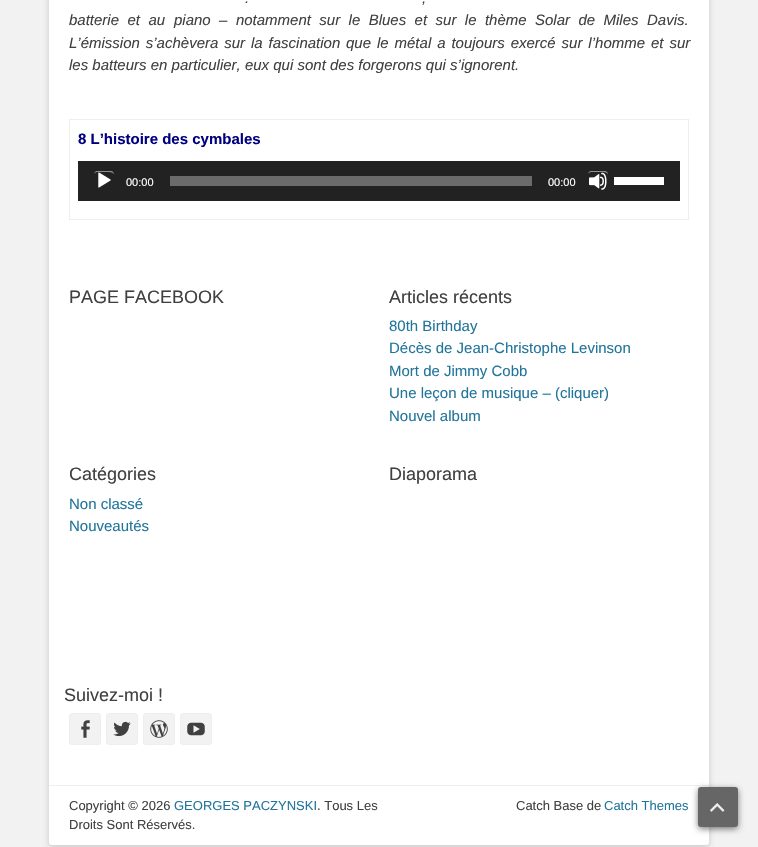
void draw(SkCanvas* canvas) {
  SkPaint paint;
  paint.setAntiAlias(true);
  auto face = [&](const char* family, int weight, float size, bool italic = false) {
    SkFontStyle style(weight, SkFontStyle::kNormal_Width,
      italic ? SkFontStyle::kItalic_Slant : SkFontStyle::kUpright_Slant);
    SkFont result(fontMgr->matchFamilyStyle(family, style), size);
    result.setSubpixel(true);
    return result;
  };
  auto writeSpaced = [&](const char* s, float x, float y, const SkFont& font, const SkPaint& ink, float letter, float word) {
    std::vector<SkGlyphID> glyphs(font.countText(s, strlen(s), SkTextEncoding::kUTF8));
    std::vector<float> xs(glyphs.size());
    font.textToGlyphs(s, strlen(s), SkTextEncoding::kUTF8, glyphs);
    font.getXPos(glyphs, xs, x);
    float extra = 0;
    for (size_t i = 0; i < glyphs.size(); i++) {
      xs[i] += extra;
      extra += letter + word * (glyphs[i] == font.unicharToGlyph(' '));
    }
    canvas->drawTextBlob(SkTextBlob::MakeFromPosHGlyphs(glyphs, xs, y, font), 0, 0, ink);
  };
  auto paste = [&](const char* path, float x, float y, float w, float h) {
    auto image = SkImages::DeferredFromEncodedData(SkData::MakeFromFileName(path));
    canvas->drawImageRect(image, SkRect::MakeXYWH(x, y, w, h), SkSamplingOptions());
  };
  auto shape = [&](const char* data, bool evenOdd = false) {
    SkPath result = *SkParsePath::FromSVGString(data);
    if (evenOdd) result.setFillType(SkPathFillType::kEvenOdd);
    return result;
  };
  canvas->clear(0xfff2f2f2);
  paint.setColor(0x4d646464);
  paint.setMaskFilter(SkMaskFilter::MakeBlur(kNormal_SkBlurStyle, 3));
  canvas->drawRoundRect(SkRect::MakeXYWH(49, -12, 660, 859), 3, 3, paint);
  paint.setMaskFilter(nullptr);
  paint.setColor(0xffffffff);
  canvas->drawRoundRect(SkRect::MakeXYWH(49, -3, 660, 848), 3, 3, paint);
  {
    const struct { float x, y, w, h; SkColor color; } items[] = {
      {69, 119, 620, 1, 0xffeeeeee},
      {69, 119, 1, 101, 0xffeeeeee},
      {688, 120, 1, 100, 0xffeeeeee},
      {70, 219, 619, 1, 0xffeeeeee},
      {78, 161, 602, 40, 0xff222222},
    };
    for (auto [x, y, w, h, color] : items) {
      paint.setColor(color);
      canvas->drawRect(SkRect::MakeXYWH(x, y, w, h), paint);
    }
  }
  paste("img/1.png", 98, 172, 13, 16);
  paint.setColor(0xff919191);
  canvas->drawPath(shape("M97 172H109C112 172 113.5 173 114 174.5V174C114 172.5 112.5 171 111 171H97C95.5 171 94 172.5 94 174C94.5 173 95.5 172 97 172Z"), paint);
  paint.setColor(0xff6b6b6b);
  canvas->drawRect(SkRect::MakeXYWH(170, 176, 362, 10), paint);
  paste("img/2.png", 589, 172, 18, 18);
  paint.setColor(0xff919191);
  canvas->drawPath(shape("M591 172H603C606 172 607.5 173 608 174.5V174C608 172.5 606.5 171 605 171H591C589.5 171 588 172.5 588 174C588.5 173 589.5 172 591 172Z"), paint);
  paint.setColor(0xffffffff);
  canvas->drawRect(SkRect::MakeXYWH(614, 177, 50, 8), paint);
  paint.setColor(0xfff2f2f2);
  canvas->drawRoundRect(SkRect::MakeXYWH(69.5f, 713.5f, 31, 31), 2.5f, 2.5f, paint);
  paint.setStroke(true);
  paint.setStrokeWidth(1);
  paint.setColor(0xffeeeeee);
  canvas->drawRoundRect(SkRect::MakeXYWH(69.5f, 713.5f, 31, 31), 2.5f, 2.5f, paint);
  paste("img/3.png", 81, 720, 9, 18);
  paint.setStroke(false);
  paint.setColor(0xfff2f2f2);
  canvas->drawRoundRect(SkRect::MakeXYWH(106.5f, 713.5f, 31, 31), 2.5f, 2.5f, paint);
  paint.setStroke(true);
  paint.setColor(0xffeeeeee);
  canvas->drawRoundRect(SkRect::MakeXYWH(106.5f, 713.5f, 31, 31), 2.5f, 2.5f, paint);
  paste("img/4.png", 113, 721, 18, 16);
  paint.setStroke(false);
  paint.setColor(0xfff2f2f2);
  canvas->drawRoundRect(SkRect::MakeXYWH(143.5f, 713.5f, 31, 31), 2.5f, 2.5f, paint);
  paint.setStroke(true);
  paint.setColor(0xffeeeeee);
  canvas->drawRoundRect(SkRect::MakeXYWH(143.5f, 713.5f, 31, 31), 2.5f, 2.5f, paint);
  paste("img/5.png", 150, 720, 18, 18);
  paint.setStroke(false);
  paint.setColor(0xfff2f2f2);
  canvas->drawRoundRect(SkRect::MakeXYWH(180.5f, 713.5f, 31, 31), 2.5f, 2.5f, paint);
  paint.setStroke(true);
  paint.setColor(0xffeeeeee);
  canvas->drawRoundRect(SkRect::MakeXYWH(180.5f, 713.5f, 31, 31), 2.5f, 2.5f, paint);
  paste("img/6.png", 187, 722, 18, 14);
  paint.setStroke(false);
  canvas->drawRect(SkRect::MakeXYWH(49, 785, 660, 1), paint);
  paint.setColor(0x80000000);
  paint.setMaskFilter(SkMaskFilter::MakeBlur(kNormal_SkBlurStyle, 3));
  canvas->drawRoundRect(SkRect::MakeXYWH(698, 789, 40, 40), 3, 3, paint);
  paint.setMaskFilter(nullptr);
  paint.setColor(0xff666666);
  canvas->drawRoundRect(SkRect::MakeXYWH(698, 787, 40, 40), 3, 3, paint);
  paste("img/7.png", 710, 803, 15, 9);
  auto f0 = face("Liberation Sans", 400, 15, true);
  paint.setColor(0xff404040);
  writeSpaced(".", 245, 3, f0, paint, 0, 2);
  writeSpaced(",", 422, 3, f0, paint, 0, 2);
  writeSpaced("batterie et au", 69, 25, f0, paint, 0, 4.25f);
  writeSpaced("piano – notamment sur le Blues et sur le thème Solar de Miles Davis.", 174, 25, f0, paint, 0, 4.25f);
  writeSpaced("L’émission s’achèvera sur la fascination", 69, 48, f0, paint, 0, 1.75f);
  writeSpaced("que le métal a toujours exercé sur l’homme et sur", 346, 48, f0, paint, 0, 1.75f);
  canvas->drawString("les batteurs en particulier, eux qui sont des forgerons qui s’ignorent.", 69, 70, f0, paint);
  auto f1 = face("Liberation Sans", 700, 15);
  paint.setColor(0xff000080);
  canvas->drawString("8 L’histoire des cymbales", 78, 144, f1, paint);
  auto f2 = face("Liberation Sans", 400, 11);
  paint.setColor(0xffffffff);
  canvas->drawString("00:00", 126, 186, f2, paint);
  canvas->drawString("00:00", 548, 186, f2, paint);
  auto f3 = face("Liberation Sans", 400, 18);
  paint.setColor(0xff404040);
  canvas->drawString("PAGE FACEBOOK", 69, 303, f3, paint);
  canvas->drawString("Articles récents", 389, 303, f3, paint);
  auto f4 = face("Liberation Sans", 400, 15);
  paint.setColor(0xff21759b);
  {
    const struct { const char* s; float x, y; } items[] = {
      {"80th Birthday", 389, 331},
      {"Décès de Jean-Christophe Levinson", 389, 353},
      {"Mort de Jimmy Cobb", 389, 376},
      {"Une leçon de musique – (cliquer)", 389, 398},
      {"Nouvel album", 389, 421},
    };
    for (auto [s, x, y] : items) {
      canvas->drawString(s, x, y, f4, paint);
    }
  }
  paint.setColor(0xff404040);
  canvas->drawString("Catégories", 69, 480, f3, paint);
  paint.setColor(0xff21759b);
  canvas->drawString("Non classé", 69, 509, f4, paint);
  canvas->drawString("Nouveautés", 69, 531, f4, paint);
  paint.setColor(0xff404040);
  canvas->drawString("Diaporama", 389, 480, f3, paint);
  canvas->drawString("Suivez-moi !", 64, 701, f3, paint);
  auto f5 = face("Liberation Sans", 400, 13);
  canvas->drawString("Copyright © 2026", 69, 810, f5, paint);
  paint.setColor(0xff21759b);
  canvas->drawString("GEORGES PACZYNSKI", 174, 810, f5, paint);
  paint.setColor(0xff404040);
  {
    const struct { const char* s; float x, y; } items[] = {
      {". Tous Les", 317, 810},
      {"Droits Sont Réservés.", 69, 829},
      {"Catch Base de", 516, 810},
    };
    for (auto [s, x, y] : items) {
      canvas->drawString(s, x, y, f5, paint);
    }
  }
  paint.setColor(0xff21759b);
  canvas->drawString("Catch Themes", 604, 810, f5, paint);
}
